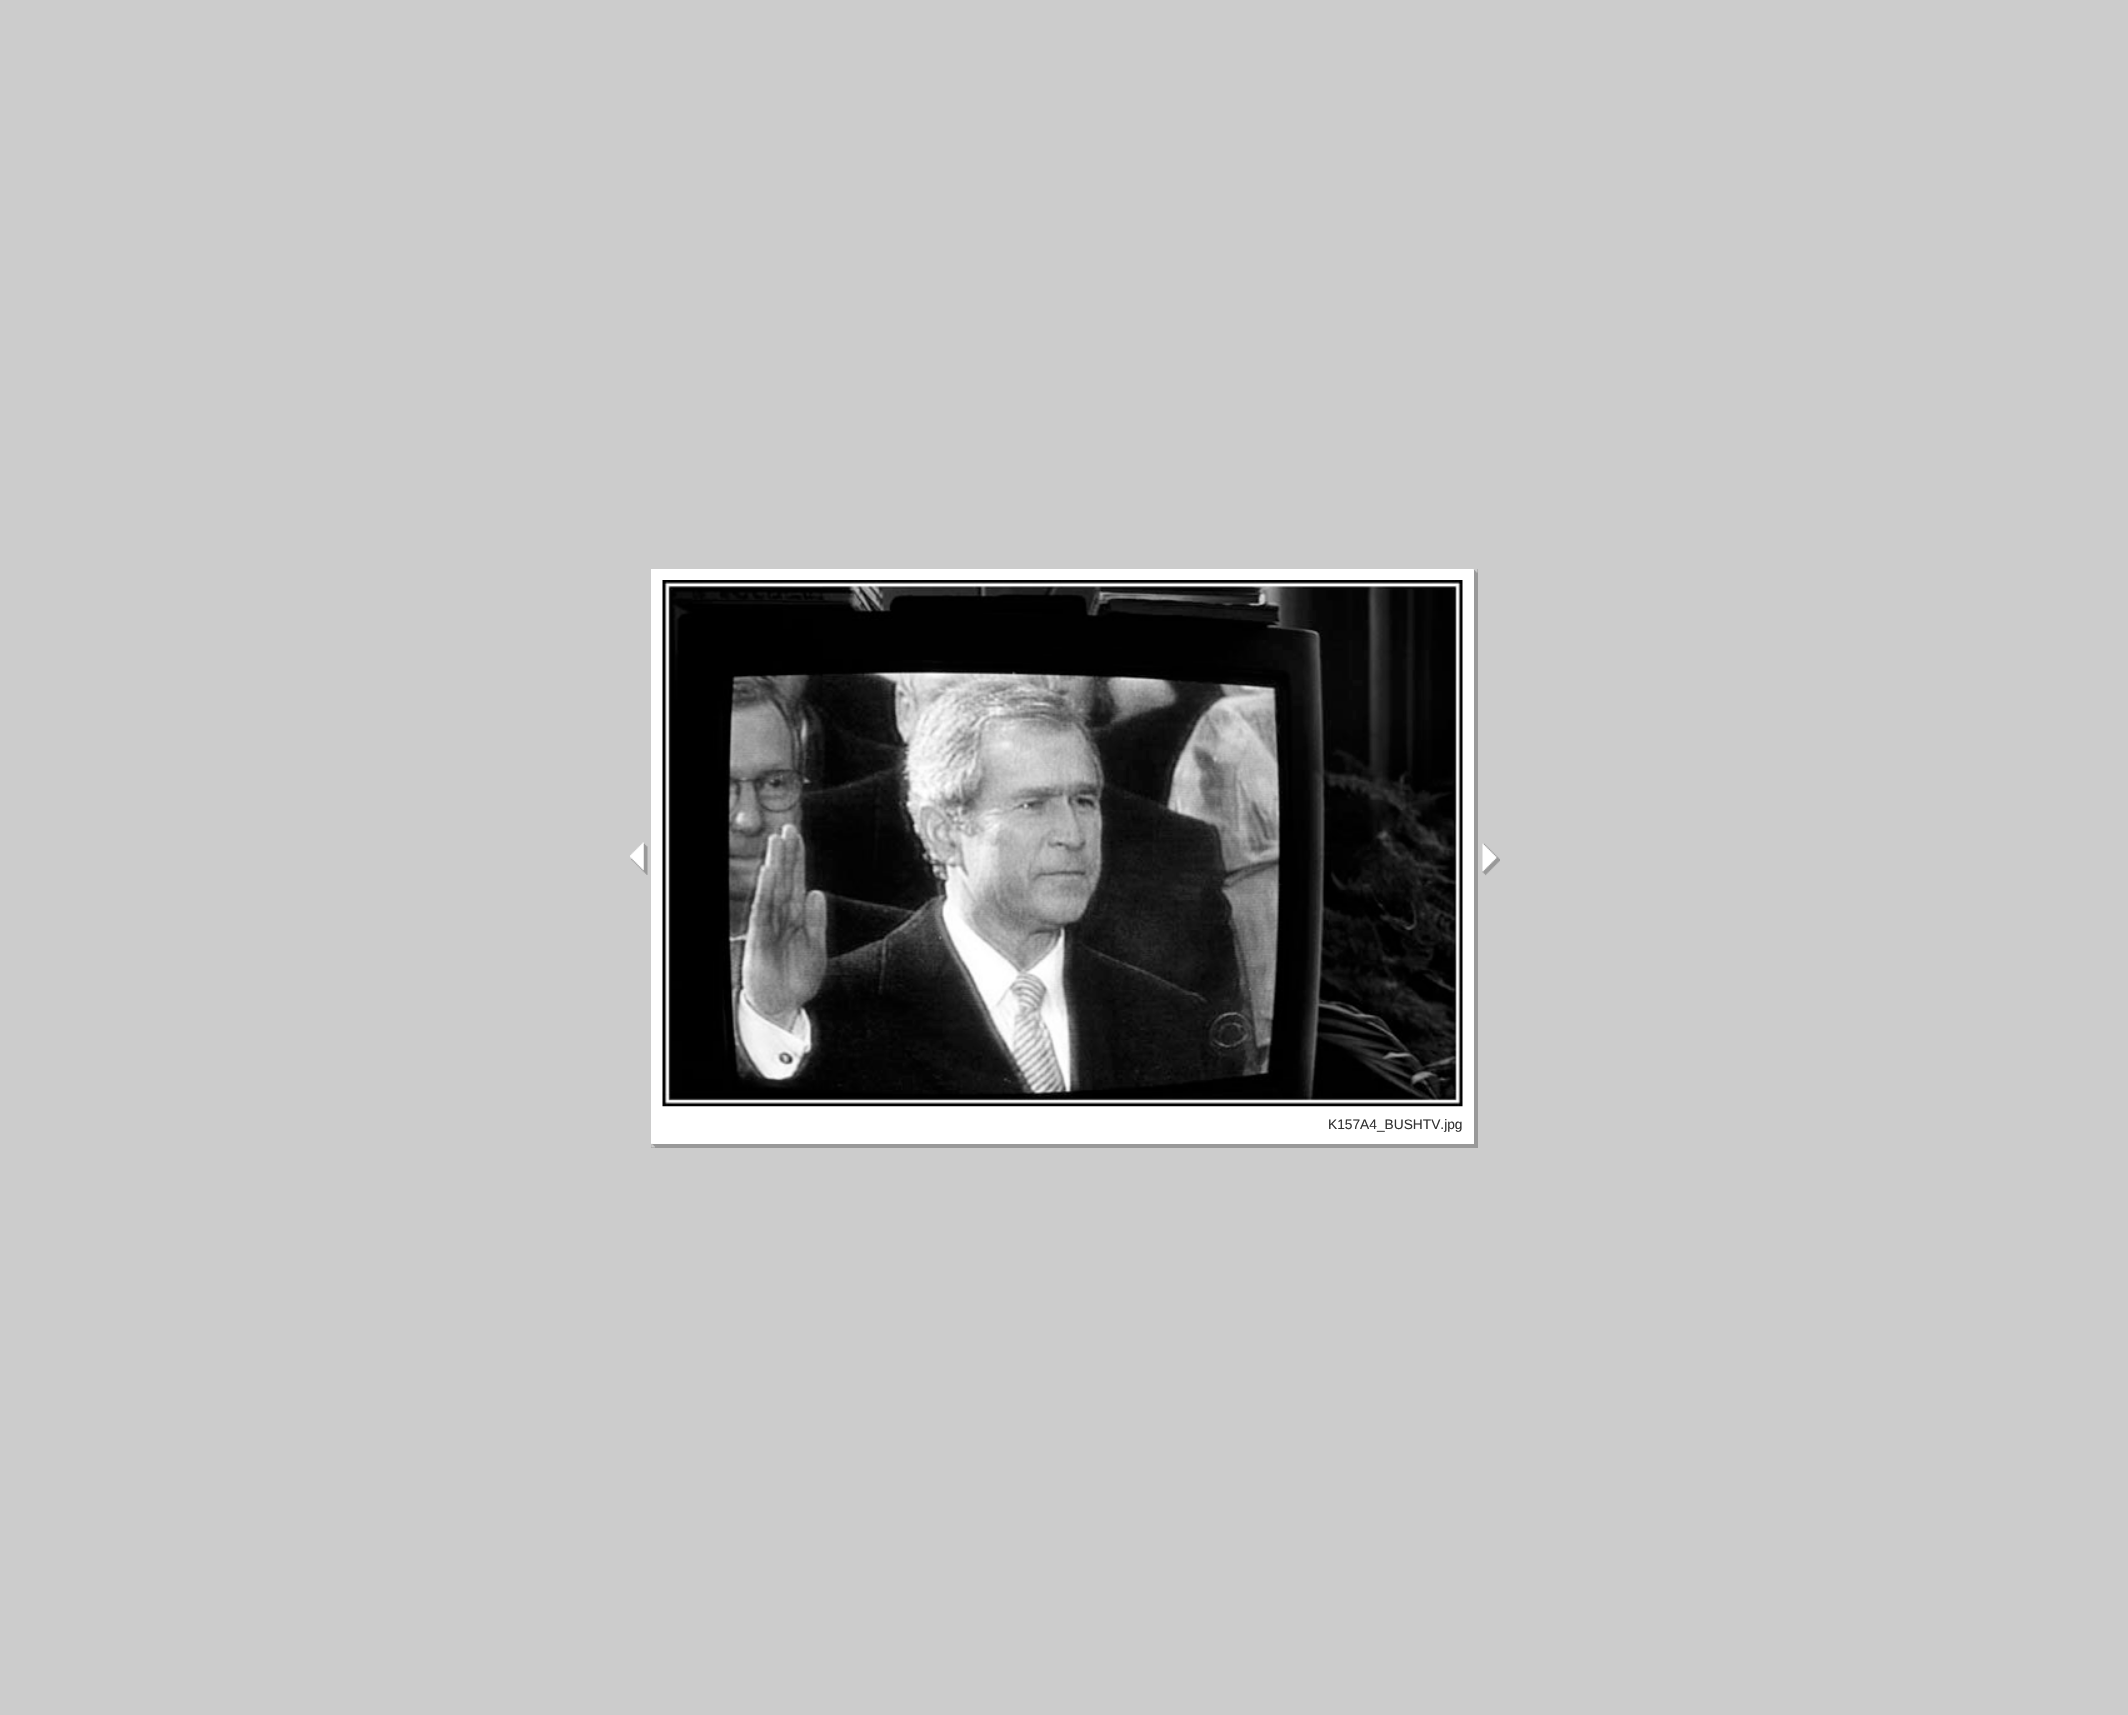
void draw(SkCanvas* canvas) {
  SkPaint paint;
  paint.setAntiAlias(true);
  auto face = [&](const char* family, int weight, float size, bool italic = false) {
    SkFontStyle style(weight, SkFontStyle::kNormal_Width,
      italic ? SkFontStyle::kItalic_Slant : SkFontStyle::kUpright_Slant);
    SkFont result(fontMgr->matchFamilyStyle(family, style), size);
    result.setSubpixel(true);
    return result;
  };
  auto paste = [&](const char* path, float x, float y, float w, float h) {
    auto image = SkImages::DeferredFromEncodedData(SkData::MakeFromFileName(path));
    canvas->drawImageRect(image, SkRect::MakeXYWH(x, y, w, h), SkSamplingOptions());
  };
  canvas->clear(0xffcccccc);
  paste("img/1.png", 630, 842, 18, 33);
  paste("img/2.png", 1482, 843, 18, 33);
  paint.setColor(0xffffffff);
  canvas->drawRect(SkRect::MakeXYWH(651, 569, 823, 575), paint);
  paste("img/3.png", 662, 580, 801, 527);
  paint.setColor(0xff999999);
  canvas->drawRect(SkRect::MakeXYWH(1474, 569, 4, 575), paint);
  paste("img/4.png", 1473, 569, 5, 4);
  canvas->drawRect(SkRect::MakeXYWH(651, 1144, 827, 4), paint);
  paste("img/5.png", 651, 1143, 4, 5);
  auto f0 = face("Liberation Sans", 400, 13.75f);
  paint.setColor(0xff333333);
  canvas->drawString("K157A4_BUSHTV.jpg", 1328, 1129, f0, paint);
}
